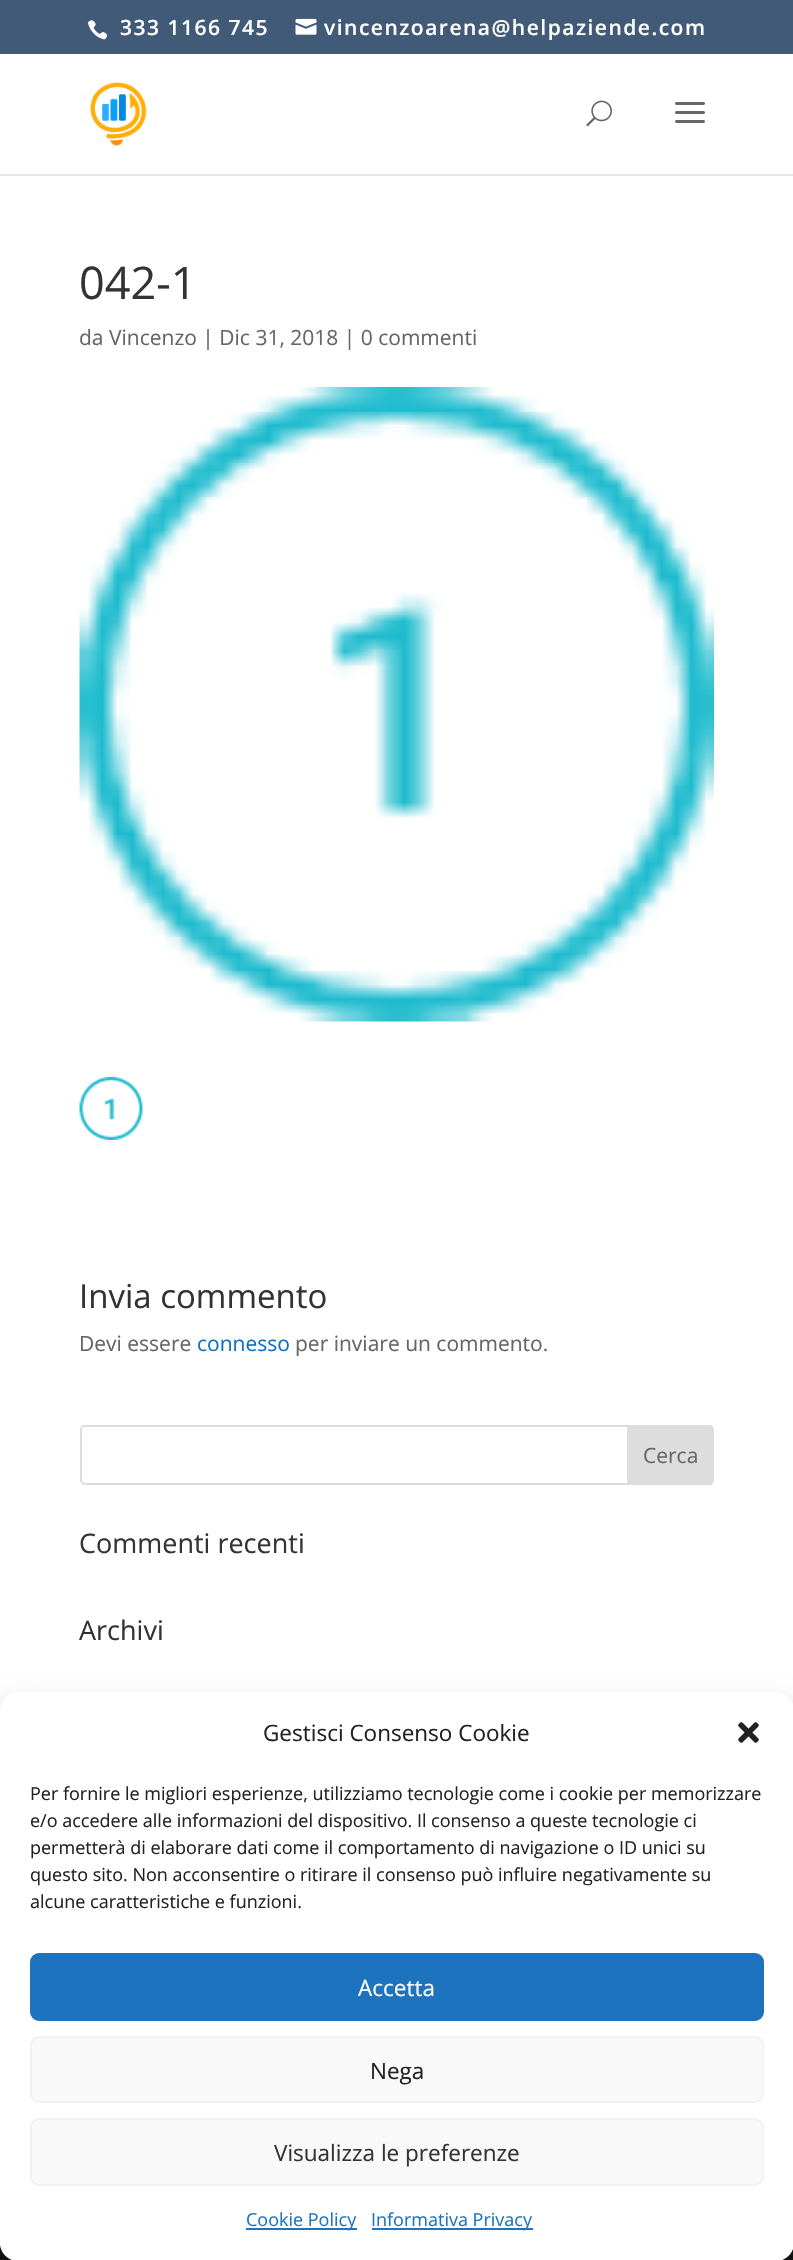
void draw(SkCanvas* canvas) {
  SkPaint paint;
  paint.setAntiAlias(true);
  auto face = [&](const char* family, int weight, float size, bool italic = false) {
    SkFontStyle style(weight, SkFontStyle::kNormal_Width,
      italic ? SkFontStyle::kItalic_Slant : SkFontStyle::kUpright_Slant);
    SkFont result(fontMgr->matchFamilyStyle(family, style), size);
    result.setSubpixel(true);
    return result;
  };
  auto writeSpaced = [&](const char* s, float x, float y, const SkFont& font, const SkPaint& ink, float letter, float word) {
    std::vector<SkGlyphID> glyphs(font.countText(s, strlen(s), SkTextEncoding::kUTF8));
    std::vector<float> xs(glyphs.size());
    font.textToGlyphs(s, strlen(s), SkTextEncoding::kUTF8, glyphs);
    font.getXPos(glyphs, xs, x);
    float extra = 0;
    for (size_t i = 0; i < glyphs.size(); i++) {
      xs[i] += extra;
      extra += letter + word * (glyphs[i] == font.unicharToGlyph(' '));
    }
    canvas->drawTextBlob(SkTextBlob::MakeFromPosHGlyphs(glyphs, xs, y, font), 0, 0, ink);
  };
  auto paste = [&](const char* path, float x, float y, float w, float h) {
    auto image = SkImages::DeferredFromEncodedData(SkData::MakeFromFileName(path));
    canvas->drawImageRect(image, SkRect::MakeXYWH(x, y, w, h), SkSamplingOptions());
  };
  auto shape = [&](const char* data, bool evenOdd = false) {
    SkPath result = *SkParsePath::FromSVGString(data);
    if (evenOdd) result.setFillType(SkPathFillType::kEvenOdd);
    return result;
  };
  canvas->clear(0xffffffff);
  paint.setColor(0xff415a77);
  canvas->drawRect(SkRect::MakeXYWH(0, 0, 793, 54), paint);
  paste("img/1.png", 87, 20, 21, 20);
  paste("img/2.png", 295, 18, 22, 17);
  paint.setColor(0xffe6e6e6);
  canvas->drawPath(shape("M0 174V176H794V56V174Z"), paint);
  paste("img/3.png", 89, 82, 58, 65);
  paste("img/4.png", 586, 100, 26, 27);
  paste("img/5.png", 675, 102, 30, 21);
  paste("img/6.png", 79, 387, 635, 635);
  paste("img/7.png", 79, 1077, 64, 63);
  paint.setStroke(true);
  paint.setStrokeWidth(2);
  paint.setColor(0xffdddddd);
  canvas->drawRoundRect(SkRect::MakeXYWH(81, 1426, 632, 58), 4, 4, paint);
  paint.setStroke(false);
  canvas->drawPath(shape("M628 1426H709C711 1426 713 1428 713 1430V1480C713 1482 711 1484 709 1484H628Z"), paint);
  paint.setStroke(true);
  canvas->drawPath(shape("M628 1426H709C711 1426 713 1428 713 1430V1480C713 1482 711 1484 709 1484H628Z"), paint);
  paint.setStroke(false);
  paint.setColor(0xff171717);
  canvas->drawRect(SkRect::MakeXYWH(0, 2246, 793, 14), paint);
  paint.setColor(0x3b000000);
  paint.setMaskFilter(SkMaskFilter::MakeBlur(kNormal_SkBlurStyle, 4.5f));
  canvas->drawRoundRect(SkRect::MakeXYWH(0, 1701, 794, 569), 18, 18, paint);
  paint.setMaskFilter(nullptr);
  paint.setColor(0x30000000);
  paint.setMaskFilter(SkMaskFilter::MakeBlur(kNormal_SkBlurStyle, 15));
  canvas->drawRoundRect(SkRect::MakeXYWH(0, 1707, 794, 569), 18, 18, paint);
  paint.setMaskFilter(nullptr);
  paint.setColor(0xffffffff);
  canvas->drawRoundRect(SkRect::MakeXYWH(0, 1692, 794, 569), 18, 18, paint);
  paste("img/8.png", 738, 1722, 21, 21);
  paint.setColor(0xff1e73be);
  canvas->drawRoundRect(SkRect::MakeXYWH(31, 1954, 732, 66), 8, 8, paint);
  paint.setStroke(true);
  canvas->drawRoundRect(SkRect::MakeXYWH(31, 1954, 732, 66), 8, 8, paint);
  paint.setStroke(false);
  paint.setColor(0xfff9f9f9);
  canvas->drawRoundRect(SkRect::MakeXYWH(31, 2037, 732, 65), 8, 8, paint);
  paint.setStroke(true);
  paint.setColor(0xfff2f2f2);
  canvas->drawRoundRect(SkRect::MakeXYWH(31, 2037, 732, 65), 8, 8, paint);
  paint.setStroke(false);
  paint.setColor(0xfff9f9f9);
  canvas->drawRoundRect(SkRect::MakeXYWH(31, 2119, 732, 66), 8, 8, paint);
  paint.setStroke(true);
  paint.setColor(0xfff2f2f2);
  canvas->drawRoundRect(SkRect::MakeXYWH(31, 2119, 732, 66), 8, 8, paint);
  paint.setStroke(false);
  paint.setColor(0xff1e73be);
  canvas->drawRect(SkRect::MakeXYWH(246, 2228, 111, 2), paint);
  canvas->drawRect(SkRect::MakeXYWH(372, 2228, 161, 2), paint);
  auto f0 = face("Open Sans", 600, 21);
  paint.setColor(0xffffffff);
  writeSpaced("333 1166 745", 120, 35, f0, paint, 1.5f, 0);
  writeSpaced("vincenzoarena@helpaziende.com", 324, 35, f0, paint, 1.5f, 0);
  auto f1 = face("Open Sans", 400, 45);
  paint.setColor(0xff333333);
  canvas->drawString("042-1", 79, 299, f1, paint);
  auto f2 = face("Open Sans", 400, 21);
  paint.setColor(0xff666666);
  canvas->drawString("da Vincenzo | Dic 31, 2018 | 0 commenti", 79, 345, f2, paint);
  auto f3 = face("Open Sans", 400, 33);
  paint.setColor(0xff333333);
  canvas->drawString("Invia commento", 79, 1308, f3, paint);
  paint.setColor(0xff666666);
  canvas->drawString("Devi essere", 79, 1351, f2, paint);
  paint.setColor(0xff0c71c3);
  canvas->drawString("connesso", 197, 1351, f2, paint);
  paint.setColor(0xff666666);
  canvas->drawString("per inviare un commento.", 295, 1351, f2, paint);
  canvas->drawString("Cerca", 643, 1463, f2, paint);
  auto f4 = face("Open Sans", 400, 27);
  paint.setColor(0xff333333);
  canvas->drawString("Commenti recenti", 79, 1553, f4, paint);
  canvas->drawString("Archivi", 79, 1640, f4, paint);
  auto f5 = face("Open Sans", 400, 22.5f);
  paint.setColor(0xff222222);
  canvas->drawString("Gestisci Consenso Cookie", 263, 1741, f5, paint);
  auto f6 = face("Open Sans", 400, 18);
  {
    const struct { const char* s; float x, y; } items[] = {
      {"Per fornire le migliori esperienze, utilizziamo tecnologie come i cookie per memorizzare", 30, 1800},
      {"e/o accedere alle informazioni del dispositivo. Il consenso a queste tecnologie ci", 30, 1827},
      {"permetterà di elaborare dati come il comportamento di navigazione o ID unici su", 30, 1854},
      {"questo sito. Non acconsentire o ritirare il consenso può influire negativamente su", 30, 1881},
      {"alcune caratteristiche e funzioni.", 30, 1908},
    };
    for (auto [s, x, y] : items) {
      canvas->drawString(s, x, y, f6, paint);
    }
  }
  paint.setColor(0xffffffff);
  canvas->drawString("Accetta", 358, 1996, f5, paint);
  paint.setColor(0xff222222);
  canvas->drawString("Nega", 370, 2079, f5, paint);
  paint.setColor(0xff333333);
  canvas->drawString("Visualizza le preferenze", 274, 2161, f5, paint);
  paint.setColor(0xff1e73be);
  canvas->drawString("Cookie Policy", 246, 2226, f6, paint);
  canvas->drawString("Informativa Privacy", 371, 2226, f6, paint);
}
